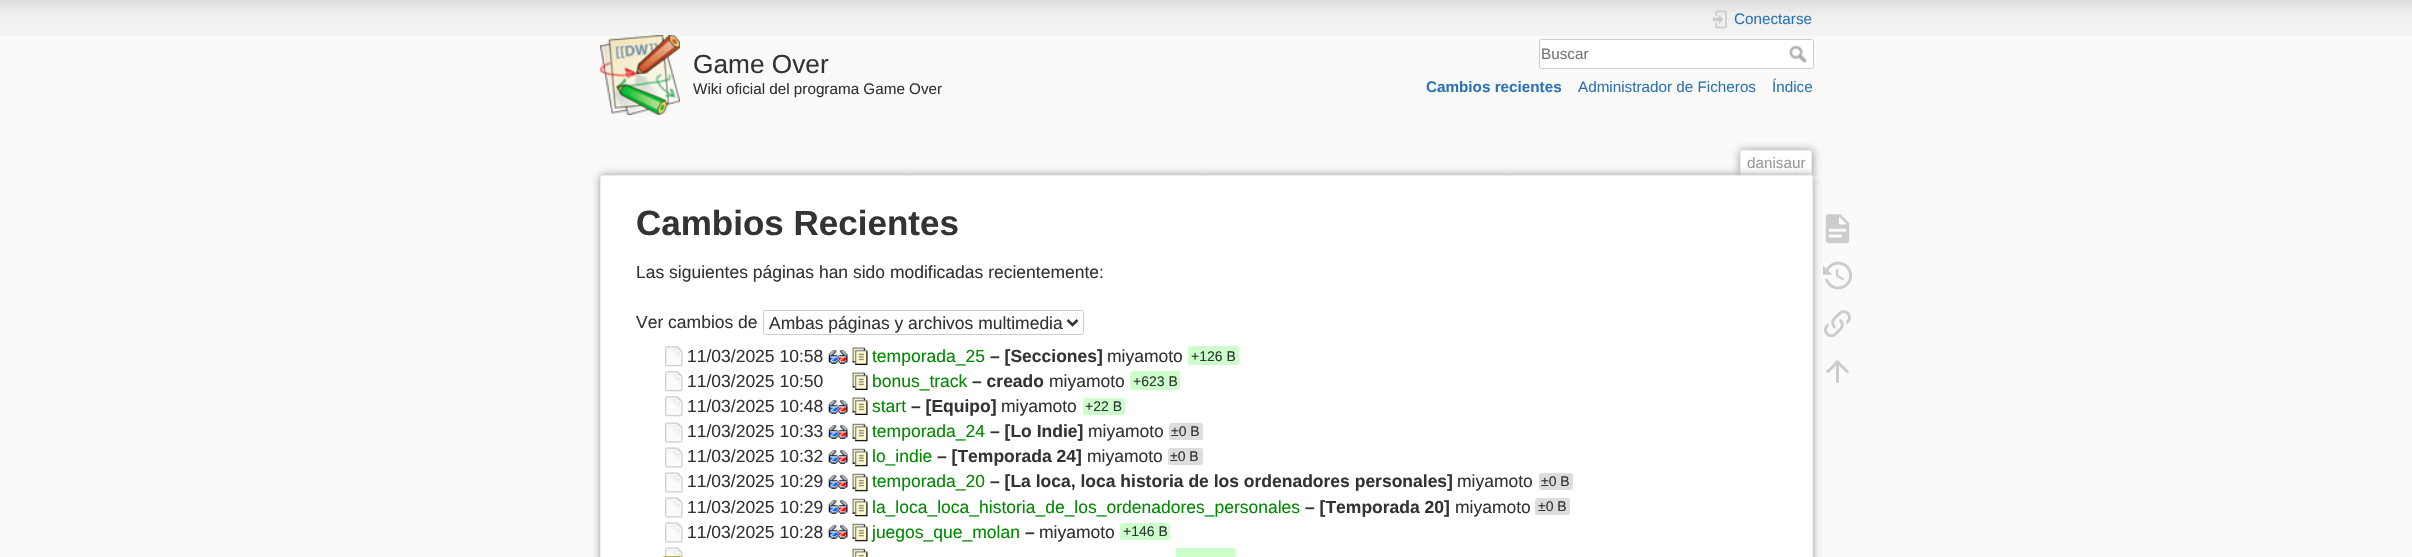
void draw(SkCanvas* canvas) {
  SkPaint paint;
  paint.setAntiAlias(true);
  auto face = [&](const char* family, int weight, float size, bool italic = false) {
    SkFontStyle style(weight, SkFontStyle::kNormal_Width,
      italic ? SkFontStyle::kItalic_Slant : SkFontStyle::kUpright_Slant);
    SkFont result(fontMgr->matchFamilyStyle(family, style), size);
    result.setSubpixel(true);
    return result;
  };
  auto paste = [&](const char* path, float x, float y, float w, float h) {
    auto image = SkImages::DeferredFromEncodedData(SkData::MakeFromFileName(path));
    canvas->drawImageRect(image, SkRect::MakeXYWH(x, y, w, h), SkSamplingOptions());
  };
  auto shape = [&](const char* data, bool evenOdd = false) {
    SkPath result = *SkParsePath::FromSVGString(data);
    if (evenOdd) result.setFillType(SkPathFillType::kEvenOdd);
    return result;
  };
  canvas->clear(0xfffbfaf9);
  paste("img/1.png", 0, 0, 2412, 36);
  paste("img/2.png", 600, 35, 80, 80);
  paste("img/3.png", 1712, 10, 15, 19);
  paint.setColor(0xffffffff);
  canvas->drawRoundRect(SkRect::MakeXYWH(1539.5f, 39.5f, 274, 29), 2, 2, paint);
  paint.setStroke(true);
  paint.setStrokeWidth(1);
  paint.setColor(0xffcccccc);
  canvas->drawRoundRect(SkRect::MakeXYWH(1539.5f, 39.5f, 274, 29), 2, 2, paint);
  paste("img/4.png", 1789, 45, 18, 18);
  canvas->save();
  canvas->clipRect(SkRect::MakeXYWH(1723, 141, 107, 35));
  paint.setStroke(false);
  paint.setColor(0xff999999);
  paint.setMaskFilter(SkMaskFilter::MakeBlur(kNormal_SkBlurStyle, 4));
  canvas->drawRoundRect(SkRect::MakeXYWH(1740, 150, 73, 26), 2.5f, 2.5f, paint);
  paint.setMaskFilter(nullptr);
  canvas->restore();
  paint.setColor(0xffffffff);
  canvas->drawPath(shape("M1742 151H1810C1810.5 151 1811 151.5 1811 152V176H1741V152C1741 151.5 1741.5 151 1742 151Z"), paint);
  {
    const struct { float x, y, w, h; SkColor color; } items[] = {
      {1741, 150, 70, 1, 0xffeeeeee},
      {1811, 151, 1, 25, 0xffeeeeee},
      {1740, 151, 1, 25, 0xffeeeeee},
    };
    for (auto [x, y, w, h, color] : items) {
      paint.setColor(color);
      canvas->drawRect(SkRect::MakeXYWH(x, y, w, h), paint);
    }
  }
  paint.setColor(0xff999999);
  paint.setMaskFilter(SkMaskFilter::MakeBlur(kNormal_SkBlurStyle, 4.5f));
  canvas->drawRoundRect(SkRect::MakeXYWH(600, 175, 1213, 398), 2.5f, 2.5f, paint);
  paint.setMaskFilter(nullptr);
  paint.setColor(0xffffffff);
  canvas->drawRoundRect(SkRect::MakeXYWH(600.5f, 175.5f, 1212, 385), 2, 2, paint);
  paint.setStroke(true);
  paint.setColor(0xffeeeeee);
  canvas->drawRoundRect(SkRect::MakeXYWH(600.5f, 175.5f, 1212, 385), 2, 2, paint);
  paint.setColor(0xffcccccc);
  canvas->drawRoundRect(SkRect::MakeXYWH(763.5f, 310.5f, 320, 24), 2, 2, paint);
  paint.setStrokeWidth(2.5f);
  paint.setColor(0xff333333);
  canvas->drawPath(shape("M1067.5 320L1072.5 325L1077.5 320"), paint);
  paste("img/5.png", 665, 346, 18, 21);
  paste("img/6.png", 828, 350, 20, 14);
  paste("img/7.png", 852, 347, 16, 18);
  paint.setStroke(false);
  paint.setColor(0xffccffcc);
  canvas->drawRoundRect(SkRect::MakeXYWH(1188, 346, 51, 19), 2.5f, 2.5f, paint);
  paste("img/5.png", 665, 371, 18, 21);
  paste("img/7.png", 852, 372, 16, 18);
  canvas->drawRoundRect(SkRect::MakeXYWH(1130, 371, 50, 19), 2.5f, 2.5f, paint);
  paste("img/5.png", 665, 396, 18, 21);
  paste("img/6.png", 828, 400, 20, 14);
  paste("img/7.png", 852, 397, 16, 18);
  canvas->drawRoundRect(SkRect::MakeXYWH(1083, 398, 42, 17), 2.5f, 2.5f, paint);
  paste("img/8.png", 665, 422, 18, 21);
  paste("img/6.png", 828, 425, 20, 14);
  paste("img/9.png", 852, 423, 16, 19);
  paint.setColor(0xffdddddd);
  canvas->drawRoundRect(SkRect::MakeXYWH(1169, 423, 34, 17), 2.5f, 2.5f, paint);
  paste("img/8.png", 665, 447, 18, 21);
  paste("img/6.png", 828, 450, 20, 14);
  paste("img/9.png", 852, 448, 16, 19);
  canvas->drawRoundRect(SkRect::MakeXYWH(1168, 448, 35, 17), 2.5f, 2.5f, paint);
  paste("img/8.png", 665, 472, 18, 21);
  paste("img/6.png", 828, 475, 20, 14);
  paste("img/9.png", 852, 473, 16, 19);
  canvas->drawRoundRect(SkRect::MakeXYWH(1539, 473, 34, 17), 2.5f, 2.5f, paint);
  paste("img/8.png", 665, 497, 18, 21);
  paste("img/6.png", 828, 500, 20, 14);
  paste("img/9.png", 852, 498, 16, 19);
  canvas->drawRoundRect(SkRect::MakeXYWH(1535, 498, 35, 17), 2.5f, 2.5f, paint);
  paste("img/8.png", 665, 522, 18, 21);
  paste("img/6.png", 828, 525, 20, 14);
  paste("img/9.png", 852, 523, 16, 19);
  paint.setColor(0xffccffcc);
  canvas->drawRoundRect(SkRect::MakeXYWH(1120, 523, 50, 17), 2.5f, 2.5f, paint);
  paste("img/10.png", 662, 547, 21, 10);
  paste("img/11.png", 852, 548, 16, 9);
  canvas->drawRoundRect(SkRect::MakeXYWH(1176, 548, 60, 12), 2.5f, 2.5f, paint);
  paste("img/12.png", 1825, 214, 25, 30);
  paste("img/13.png", 1823, 261, 29, 29);
  paste("img/14.png", 1824, 310, 27, 28);
  paste("img/15.png", 1826, 360, 23, 23);
  auto f0 = face("Liberation Sans", 400, 26.25f);
  paint.setColor(0xff333333);
  canvas->drawString("Game Over", 693, 73, f0, paint);
  auto f1 = face("Liberation Sans", 400, 15.25f);
  canvas->drawString("Wiki oficial del programa Game Over", 693, 94, f1, paint);
  paint.setColor(0xff2b73b7);
  canvas->drawString("Conectarse", 1734, 24, f1, paint);
  paint.setColor(0xff757575);
  canvas->drawString("Buscar", 1541, 59, f1, paint);
  auto f2 = face("Liberation Sans", 700, 15.25f);
  paint.setColor(0xff2b73b7);
  canvas->drawString("Cambios recientes", 1426, 92, f2, paint);
  canvas->drawString("Administrador de Ficheros", 1578, 92, f1, paint);
  canvas->drawString("Índice", 1772, 92, f1, paint);
  paint.setColor(0xff999999);
  canvas->drawString("danisaur", 1747, 168, f1, paint);
  auto f3 = face("Liberation Sans", 700, 35);
  paint.setColor(0xff333333);
  canvas->drawString("Cambios Recientes", 636, 235, f3, paint);
  auto f4 = face("Liberation Sans", 400, 17.5f);
  {
    const struct { const char* s; float x, y; } items[] = {
      {"Las siguientes páginas han sido modificadas recientemente:", 636, 278},
      {"Ver cambios de", 636, 328},
      {"Ambas páginas y archivos multimedia", 769, 329},
      {"11/03/2025 10:58", 687, 362},
    };
    for (auto [s, x, y] : items) {
      canvas->drawString(s, x, y, f4, paint);
    }
  }
  paint.setColor(0xff008800);
  canvas->drawString("temporada_25", 872, 362, f4, paint);
  auto f5 = face("Liberation Sans", 700, 17.5f);
  paint.setColor(0xff333333);
  canvas->drawString("– [Secciones]", 990, 362, f5, paint);
  canvas->drawString("miyamoto", 1107, 362, f4, paint);
  auto f6 = face("Liberation Sans", 400, 14);
  canvas->drawString("+126 B", 1191, 361, f6, paint);
  canvas->drawString("11/03/2025 10:50", 687, 387, f4, paint);
  paint.setColor(0xff008800);
  canvas->drawString("bonus_track", 872, 387, f4, paint);
  paint.setColor(0xff333333);
  canvas->drawString("– creado", 972, 387, f5, paint);
  canvas->drawString("miyamoto", 1049, 387, f4, paint);
  canvas->drawString("+623 B", 1133, 386, f6, paint);
  canvas->drawString("11/03/2025 10:48", 687, 412, f4, paint);
  paint.setColor(0xff008800);
  canvas->drawString("start", 872, 412, f4, paint);
  paint.setColor(0xff333333);
  canvas->drawString("– [Equipo]", 911, 412, f5, paint);
  canvas->drawString("miyamoto", 1001, 412, f4, paint);
  canvas->drawString("+22 B", 1085, 411, f6, paint);
  canvas->drawString("11/03/2025 10:33", 687, 437, f4, paint);
  paint.setColor(0xff008800);
  canvas->drawString("temporada_24", 872, 437, f4, paint);
  paint.setColor(0xff333333);
  canvas->drawString("– [Lo Indie]", 990, 437, f5, paint);
  canvas->drawString("miyamoto", 1088, 437, f4, paint);
  canvas->drawString("±0 B", 1171, 436, f6, paint);
  canvas->drawString("11/03/2025 10:32", 687, 462, f4, paint);
  paint.setColor(0xff008800);
  canvas->drawString("lo_indie", 872, 462, f4, paint);
  paint.setColor(0xff333333);
  canvas->drawString("– [Temporada 24]", 937, 462, f5, paint);
  canvas->drawString("miyamoto", 1087, 462, f4, paint);
  canvas->drawString("±0 B", 1170, 461, f6, paint);
  canvas->drawString("11/03/2025 10:29", 687, 487, f4, paint);
  paint.setColor(0xff008800);
  canvas->drawString("temporada_20", 872, 487, f4, paint);
  paint.setColor(0xff333333);
  canvas->drawString("– [La loca, loca historia de los ordenadores personales]", 990, 487, f5, paint);
  canvas->drawString("miyamoto", 1457, 487, f4, paint);
  canvas->drawString("±0 B", 1541, 486, f6, paint);
  canvas->drawString("11/03/2025 10:29", 687, 513, f4, paint);
  paint.setColor(0xff008800);
  canvas->drawString("la_loca_loca_historia_de_los_ordenadores_personales", 872, 513, f4, paint);
  paint.setColor(0xff333333);
  canvas->drawString("– [Temporada 20]", 1305, 513, f5, paint);
  canvas->drawString("miyamoto", 1455, 513, f4, paint);
  canvas->drawString("±0 B", 1538, 511, f6, paint);
  canvas->drawString("11/03/2025 10:28", 687, 538, f4, paint);
  paint.setColor(0xff008800);
  canvas->drawString("juegos_que_molan", 872, 538, f4, paint);
  paint.setColor(0xff333333);
  canvas->drawString("–", 1025, 538, f5, paint);
  canvas->drawString("miyamoto", 1039, 538, f4, paint);
  canvas->drawString("+146 B", 1123, 536, f6, paint);
}
